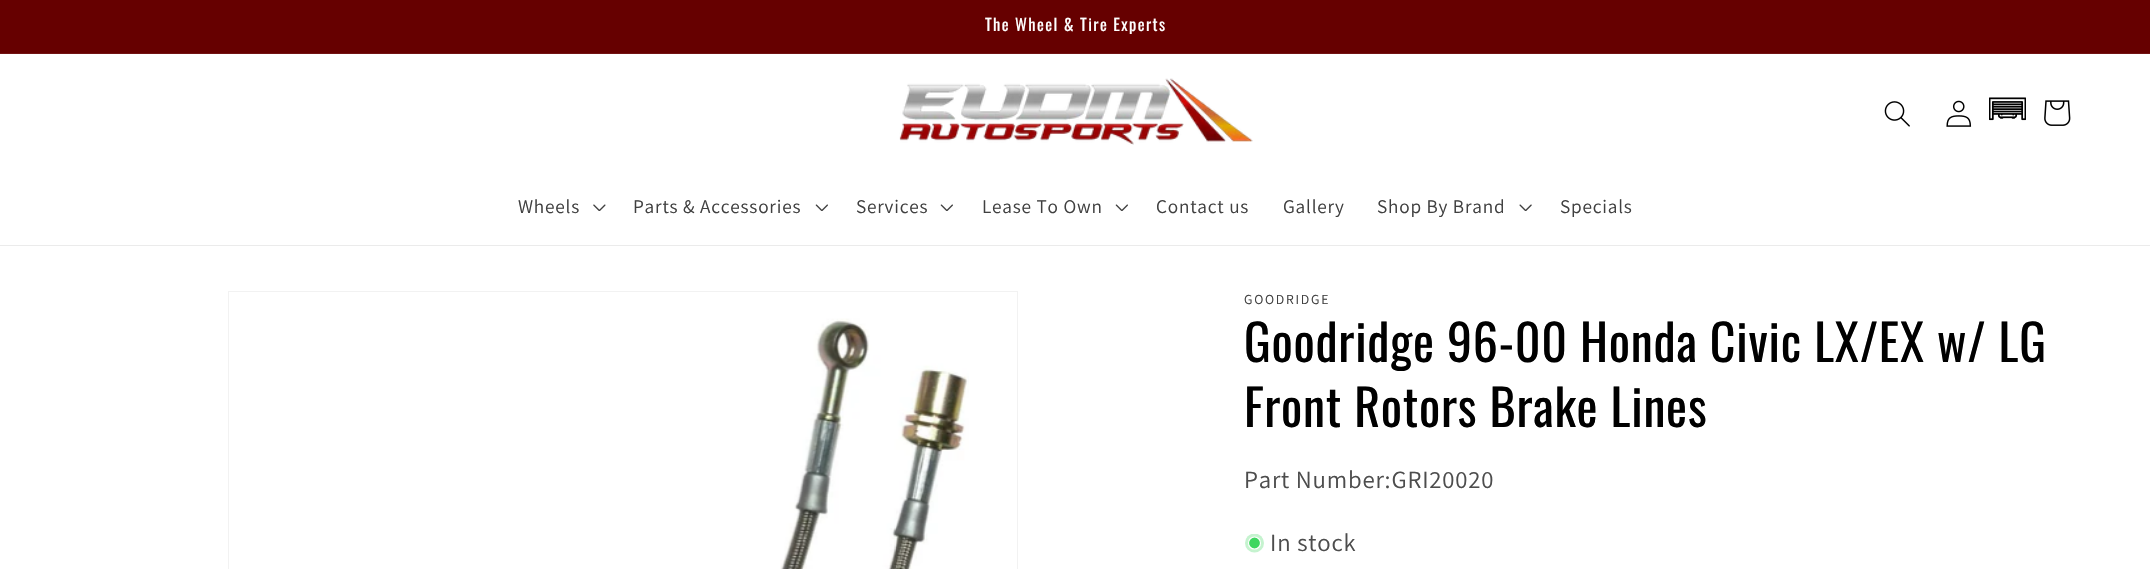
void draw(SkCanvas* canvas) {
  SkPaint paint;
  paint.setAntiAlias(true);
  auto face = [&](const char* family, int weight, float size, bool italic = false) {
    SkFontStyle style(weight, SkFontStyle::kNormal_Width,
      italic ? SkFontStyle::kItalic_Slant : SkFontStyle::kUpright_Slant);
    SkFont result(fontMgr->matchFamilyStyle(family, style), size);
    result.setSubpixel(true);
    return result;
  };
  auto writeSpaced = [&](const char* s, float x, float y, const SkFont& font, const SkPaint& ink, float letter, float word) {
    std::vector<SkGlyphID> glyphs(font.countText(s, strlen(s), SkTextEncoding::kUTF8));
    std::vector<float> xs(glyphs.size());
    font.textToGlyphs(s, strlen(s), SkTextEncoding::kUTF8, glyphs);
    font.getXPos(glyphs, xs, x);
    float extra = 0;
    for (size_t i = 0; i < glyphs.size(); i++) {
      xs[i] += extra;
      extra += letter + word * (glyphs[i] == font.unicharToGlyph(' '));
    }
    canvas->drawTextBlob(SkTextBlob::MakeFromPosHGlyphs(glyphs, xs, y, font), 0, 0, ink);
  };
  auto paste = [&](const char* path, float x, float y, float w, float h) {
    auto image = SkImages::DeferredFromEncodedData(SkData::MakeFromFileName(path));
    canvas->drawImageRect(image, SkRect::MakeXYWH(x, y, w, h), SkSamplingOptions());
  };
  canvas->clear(0xffffffff);
  {
    const struct { float x, y, w, h; SkColor color; } items[] = {
      {0, 0, 2150, 53, 0xff660000},
      {0, 53, 2150, 1, 0xff721414},
      {0, 245, 2150, 1, 0xffebebeb},
    };
    for (auto [x, y, w, h, color] : items) {
      paint.setColor(color);
      canvas->drawRect(SkRect::MakeXYWH(x, y, w, h), paint);
    }
  }
  paste("img/1.png", 899, 78, 354, 67);
  paste("img/2.png", 1884, 101, 26, 26);
  paste("img/3.png", 1946, 100, 26, 27);
  paste("img/4.png", 1989, 97, 37, 24);
  paste("img/5.png", 2044, 100, 27, 26);
  paste("img/6.png", 593, 204, 13, 7);
  paste("img/7.png", 815, 204, 13, 7);
  paste("img/7.png", 940, 204, 13, 7);
  paste("img/7.png", 1115, 204, 13, 7);
  paste("img/8.png", 1519, 204, 13, 7);
  paint.setStroke(true);
  paint.setStrokeWidth(1);
  paint.setColor(0xfff2f2f2);
  canvas->drawRect(SkRect::MakeXYWH(228.5f, 291.5f, 789, 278), paint);
  paste("img/9.png", 780, 318, 189, 251);
  canvas->save();
  canvas->clipRect(SkRect::MakeXYWH(1245, 534, 19, 19));
  paint.setStroke(false);
  paint.setColor(0xffc5f3cf);
  canvas->drawCircle(1254.5f, 543, 9.5f, paint);
  canvas->restore();
  paint.setColor(0xff3ed660);
  canvas->drawCircle(1254.5f, 543, 6, paint);
  paint.setStroke(true);
  paint.setStrokeWidth(1.2f);
  paint.setColor(0xffffffff);
  canvas->drawCircle(1254.5f, 543, 6, paint);
  auto f0 = face("Oswald", 400, 16.25f);
  paint.setStroke(false);
  writeSpaced("The Wheel & Tire Experts", 985, 31, f0, paint, 1.4f, 0);
  auto f1 = face("Assistant", 400, 19.25f);
  paint.setColor(0xff404040);
  {
    const struct { const char* s; float x, y; } items[] = {
      {"Wheels", 518, 213},
      {"Parts & Accessories", 633, 213},
      {"Services", 856, 213},
      {"Lease To Own", 982, 213},
      {"Contact us", 1156, 213},
      {"Gallery", 1283, 213},
      {"Shop By Brand", 1377, 213},
      {"Specials", 1560, 213},
    };
    for (auto [s, x, y] : items) {
      writeSpaced(s, x, y, f1, paint, 0.8f, 0);
    }
  }
  auto f2 = face("Assistant", 400, 13.75f);
  writeSpaced("GOODRIDGE", 1244, 304, f2, paint, 1.75f, 0);
  auto f3 = face("Oswald", 400, 50);
  paint.setColor(0xff000000);
  writeSpaced("Goodridge 96-00 Honda Civic LX/EX w/ LG", 1244, 362, f3, paint, 0.75f, 0);
  writeSpaced("Front Rotors Brake Lines", 1244, 427, f3, paint, 0.75f, 0);
  auto f4 = face("Assistant", 400, 24.75f);
  paint.setColor(0xff4d4d4d);
  writeSpaced("Part Number:GRI20020", 1244, 488, f4, paint, 0.8f, 0);
  writeSpaced("In stock", 1270, 551, f4, paint, 0.8f, 0);
}
